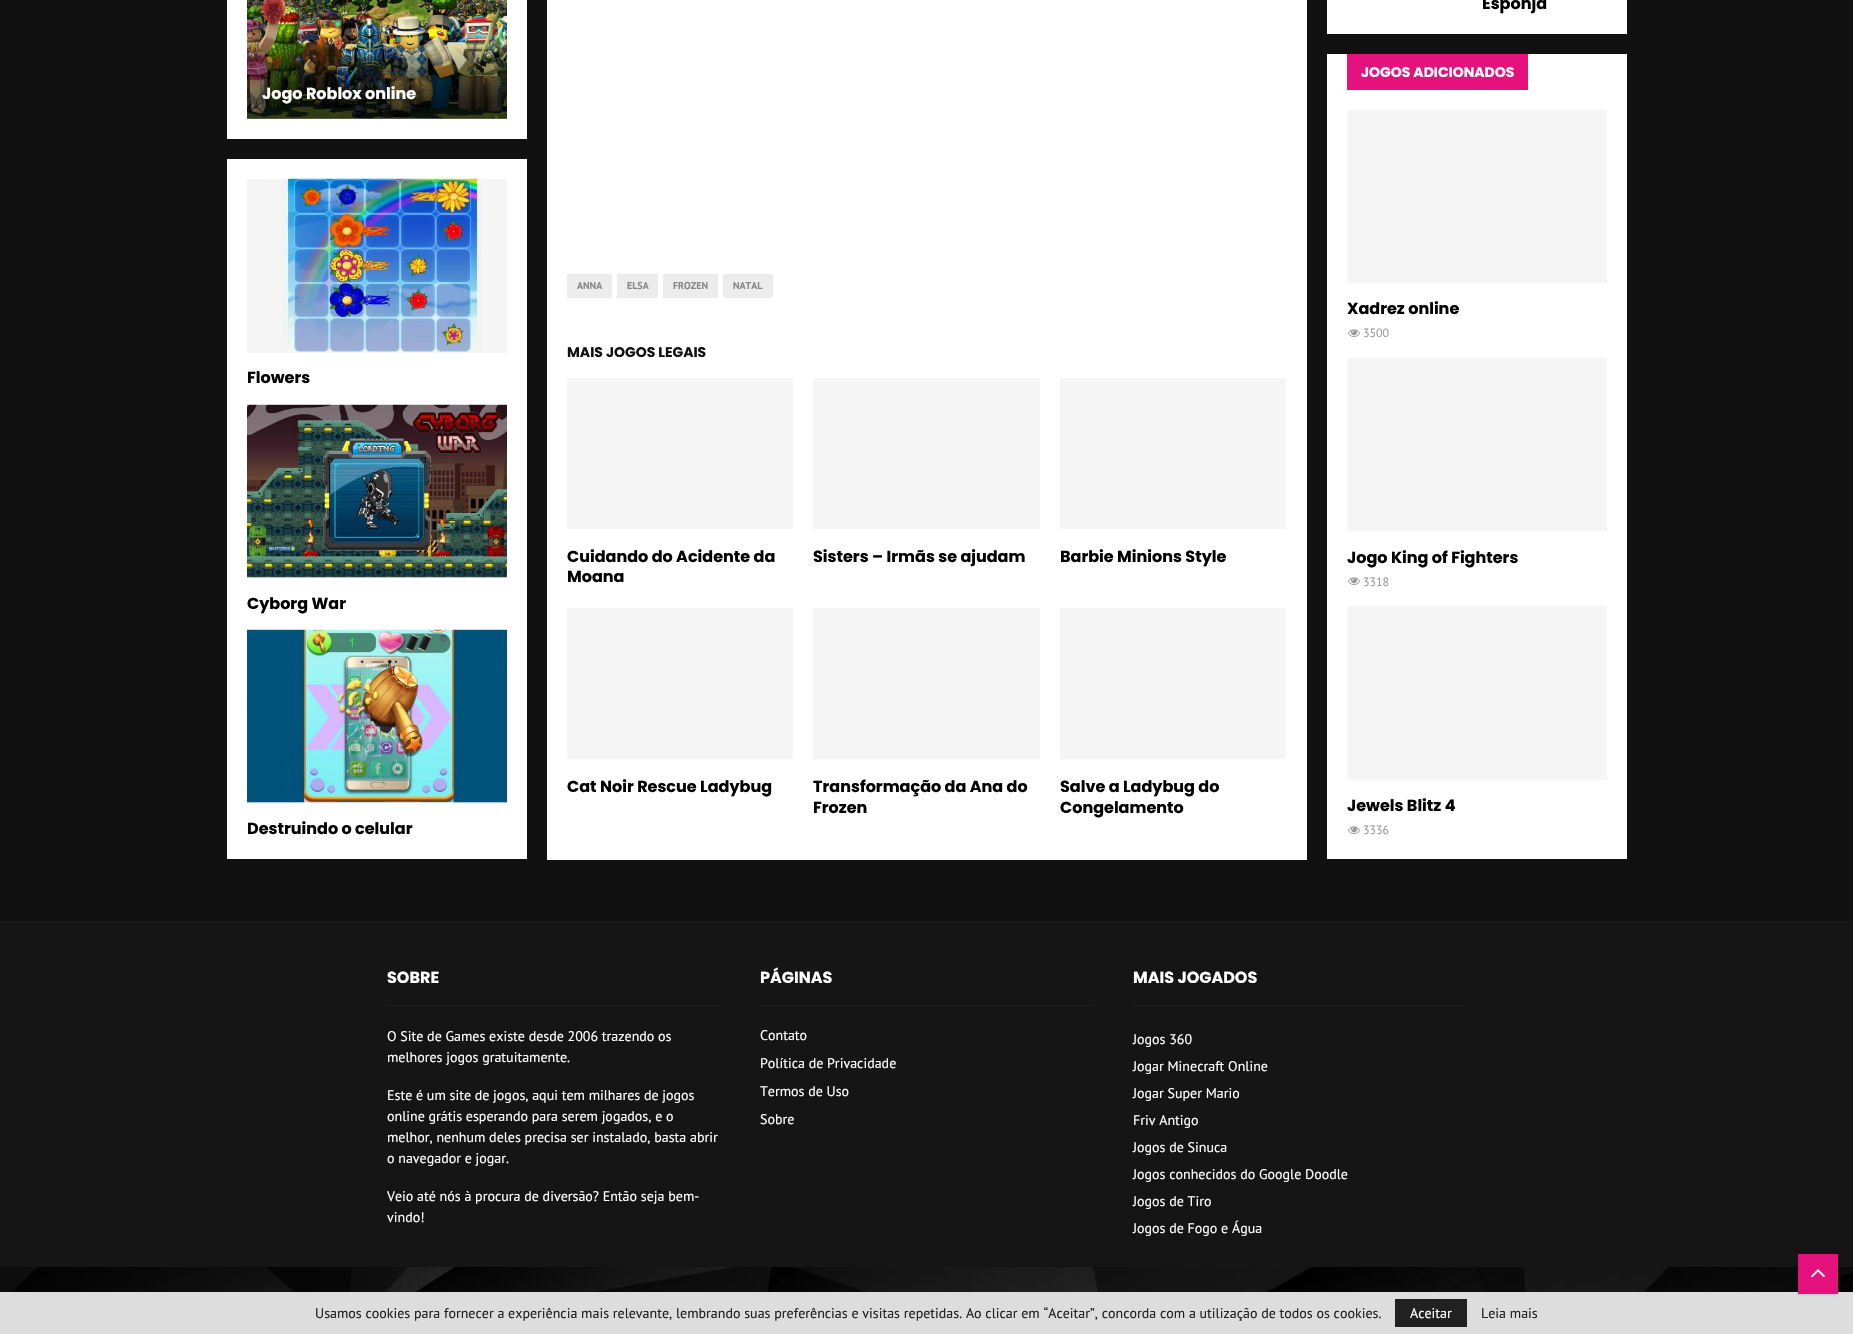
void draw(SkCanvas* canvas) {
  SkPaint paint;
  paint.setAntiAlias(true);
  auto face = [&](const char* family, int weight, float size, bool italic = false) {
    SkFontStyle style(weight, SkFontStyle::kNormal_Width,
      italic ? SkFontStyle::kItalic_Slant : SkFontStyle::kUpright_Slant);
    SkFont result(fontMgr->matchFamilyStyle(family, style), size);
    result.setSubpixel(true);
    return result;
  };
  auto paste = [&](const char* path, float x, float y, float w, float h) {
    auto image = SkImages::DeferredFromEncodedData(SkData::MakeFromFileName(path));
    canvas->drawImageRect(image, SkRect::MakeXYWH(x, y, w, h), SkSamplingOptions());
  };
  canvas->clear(0xff111111);
  paint.setColor(0xffffffff);
  canvas->drawRect(SkRect::MakeXYWH(227, 0, 300, 139), paint);
  paint.setColor(0xfff5f5f5);
  canvas->drawRect(SkRect::MakeXYWH(247, 118, 260, 1), paint);
  paste("img/1.png", 247, 0, 260, 119);
  {
    const SkColor colors[] = {0x00000000, 0x99000000};
    const float stops[] = {0.5f, 0.9f};
    const SkPoint ends[] = {{377, -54}, {377, 119}};
    paint.setShader(SkGradientShader::MakeLinear(ends, colors, stops, 2, SkTileMode::kClamp));
    paint.setAlpha(255);
  }
  canvas->drawRect(SkRect::MakeXYWH(247, 35, 260, 84), paint);
  paint.setShader(nullptr);
  paint.setColor(0xffffffff);
  canvas->drawRect(SkRect::MakeXYWH(227, 159, 300, 700), paint);
  paint.setColor(0xfff5f5f5);
  canvas->drawRect(SkRect::MakeXYWH(247, 179, 260, 174), paint);
  paste("img/2.png", 281, 178, 201, 175);
  canvas->drawRect(SkRect::MakeXYWH(247, 577, 260, 1), paint);
  paste("img/3.png", 247, 404, 260, 174);
  canvas->drawRect(SkRect::MakeXYWH(247, 802, 260, 1), paint);
  paste("img/4.png", 247, 629, 260, 174);
  {
    const struct { float x, y, w, h; SkColor color; } items[] = {
      {547, 0, 760, 860, 0xffffffff},
      {567, 274, 45, 24, 0xffececec},
      {617, 274, 41, 24, 0xffececec},
      {663, 274, 55, 24, 0xffececec},
      {723, 274, 50, 24, 0xffececec},
      {567, 378, 226, 151, 0xfff5f5f5},
      {813, 378, 227, 151, 0xfff5f5f5},
      {1060, 378, 226, 151, 0xfff5f5f5},
      {567, 608, 226, 151, 0xfff5f5f5},
      {813, 608, 227, 151, 0xfff5f5f5},
      {1060, 608, 226, 151, 0xfff5f5f5},
      {1327, 0, 300, 34, 0xffffffff},
      {1327, 54, 300, 805, 0xffffffff},
      {1347, 54, 181, 36, 0xffe5127d},
      {1347, 110, 260, 173, 0xfff5f5f5},
    };
    for (auto [x, y, w, h, color] : items) {
      paint.setColor(color);
      canvas->drawRect(SkRect::MakeXYWH(x, y, w, h), paint);
    }
  }
  paste("img/5.png", 1348, 329, 12, 8);
  canvas->drawRect(SkRect::MakeXYWH(1347, 358, 260, 173), paint);
  paste("img/5.png", 1348, 577, 12, 8);
  canvas->drawRect(SkRect::MakeXYWH(1347, 606, 260, 174), paint);
  paste("img/5.png", 1348, 826, 12, 8);
  paste("img/6.png", 0, 1267, 1853, 25);
  {
    const struct { float x, y, w, h; SkColor color; } items[] = {
      {0, 921, 1853, 346, 0xff151515},
      {387, 1005, 333, 1, 0xff212121},
      {760, 1005, 333, 1, 0xff212121},
      {1133, 1005, 333, 1, 0xff212121},
      {0, 1292, 1853, 42, 0xffdddddd},
    };
    for (auto [x, y, w, h, color] : items) {
      paint.setColor(color);
      canvas->drawRect(SkRect::MakeXYWH(x, y, w, h), paint);
    }
  }
  paint.setColor(0x1a000000);
  paint.setMaskFilter(SkMaskFilter::MakeBlur(kNormal_SkBlurStyle, 1));
  canvas->drawRect(SkRect::MakeXYWH(1798, 1255, 40, 40), paint);
  paint.setMaskFilter(nullptr);
  paint.setColor(0xffe5127d);
  canvas->drawRect(SkRect::MakeXYWH(1798, 1254, 40, 40), paint);
  paste("img/7.png", 1811, 1269, 14, 9);
  paint.setColor(0xff212121);
  canvas->drawRect(SkRect::MakeXYWH(1395, 1299, 72, 28), paint);
  auto f0 = face("Poppins", 700, 16);
  paint.setColor(0xffffffff);
  canvas->drawString("Jogo Roblox online", 262, 99, f0, paint);
  paint.setColor(0xff000000);
  {
    const struct { const char* s; float x, y; } items[] = {
      {"Flowers", 247, 383},
      {"Cyborg War", 247, 609},
      {"Destruindo o celular", 247, 834},
    };
    for (auto [s, x, y] : items) {
      canvas->drawString(s, x, y, f0, paint);
    }
  }
  auto f1 = face("PT Sans", 700, 10);
  paint.setColor(0xff888888);
  {
    const struct { const char* s; float x, y; } items[] = {
      {"ANNA", 577, 289},
      {"ELSA", 627, 289},
      {"FROZEN", 673, 289},
      {"NATAL", 733, 289},
    };
    for (auto [s, x, y] : items) {
      canvas->drawString(s, x, y, f1, paint);
    }
  }
  auto f2 = face("Poppins", 700, 14);
  paint.setColor(0xff111111);
  canvas->drawString("MAIS JOGOS LEGAIS", 567, 357, f2, paint);
  paint.setColor(0xff000000);
  {
    const struct { const char* s; float x, y; } items[] = {
      {"Cuidando do Acidente da", 567, 562},
      {"Moana", 567, 582},
      {"Sisters – Irmãs se ajudam", 813, 562},
      {"Barbie Minions Style", 1060, 562},
      {"Cat Noir Rescue Ladybug", 567, 792},
      {"Transformação da Ana do", 813, 792},
      {"Frozen", 813, 813},
      {"Salve a Ladybug do", 1060, 792},
      {"Congelamento", 1060, 813},
      {"Esponja", 1482, 9},
    };
    for (auto [s, x, y] : items) {
      canvas->drawString(s, x, y, f0, paint);
    }
  }
  paint.setColor(0xffffffff);
  canvas->drawString("JOGOS ADICIONADOS", 1361, 77, f2, paint);
  paint.setColor(0xff000000);
  canvas->drawString("Xadrez online", 1347, 314, f0, paint);
  auto f3 = face("PT Sans", 400, 12);
  paint.setColor(0xff999999);
  canvas->drawString("3500", 1363, 337, f3, paint);
  paint.setColor(0xff000000);
  canvas->drawString("Jogo King of Fighters", 1347, 563, f0, paint);
  paint.setColor(0xff999999);
  canvas->drawString("3318", 1363, 586, f3, paint);
  paint.setColor(0xff000000);
  canvas->drawString("Jewels Blitz 4", 1347, 811, f0, paint);
  paint.setColor(0xff999999);
  canvas->drawString("3336", 1363, 834, f3, paint);
  paint.setColor(0xffffffff);
  canvas->drawString("SOBRE", 387, 983, f0, paint);
  auto f4 = face("PT Sans", 400, 14);
  {
    const struct { const char* s; float x, y; } items[] = {
      {"O Site de Games existe desde 2006 trazendo os", 387, 1041},
      {"melhores jogos gratuitamente.", 387, 1062},
      {"Este é um site de jogos, aqui tem milhares de jogos", 387, 1100},
      {"online grátis esperando para serem jogados, e o", 387, 1121},
      {"melhor, nenhum deles precisa ser instalado, basta abrir", 387, 1142},
      {"o navegador e jogar.", 387, 1163},
      {"Veio até nós à procura de diversão? Então seja bem-", 387, 1201},
      {"vindo!", 387, 1222},
    };
    for (auto [s, x, y] : items) {
      canvas->drawString(s, x, y, f4, paint);
    }
  }
  canvas->drawString("PÁGINAS", 760, 983, f0, paint);
  {
    const struct { const char* s; float x, y; } items[] = {
      {"Contato", 760, 1040},
      {"Política de Privacidade", 760, 1068},
      {"Termos de Uso", 760, 1096},
      {"Sobre", 760, 1124},
    };
    for (auto [s, x, y] : items) {
      canvas->drawString(s, x, y, f4, paint);
    }
  }
  canvas->drawString("MAIS JOGADOS", 1133, 983, f0, paint);
  {
    const struct { const char* s; float x, y; } items[] = {
      {"Jogos 360", 1133, 1044},
      {"Jogar Minecraft Online", 1133, 1071},
      {"Jogar Super Mario", 1133, 1098},
      {"Friv Antigo", 1133, 1125},
      {"Jogos de Sinuca", 1133, 1152},
      {"Jogos conhecidos do Google Doodle", 1133, 1179},
      {"Jogos de Tiro", 1133, 1206},
      {"Jogos de Fogo e Água", 1133, 1233},
    };
    for (auto [s, x, y] : items) {
      canvas->drawString(s, x, y, f4, paint);
    }
  }
  paint.setColor(0xff212121);
  canvas->drawString("Usamos cookies para fornecer a experiência mais relevante, lembrando suas preferências e visitas repetidas. Ao clicar em “Aceitar”, concorda com a utilização de todos os cookies.", 315, 1318, f4, paint);
  paint.setColor(0xffffffff);
  canvas->drawString("Aceitar", 1410, 1318, f4, paint);
  paint.setColor(0xff212121);
  canvas->drawString("Leia mais", 1481, 1318, f4, paint);
}
